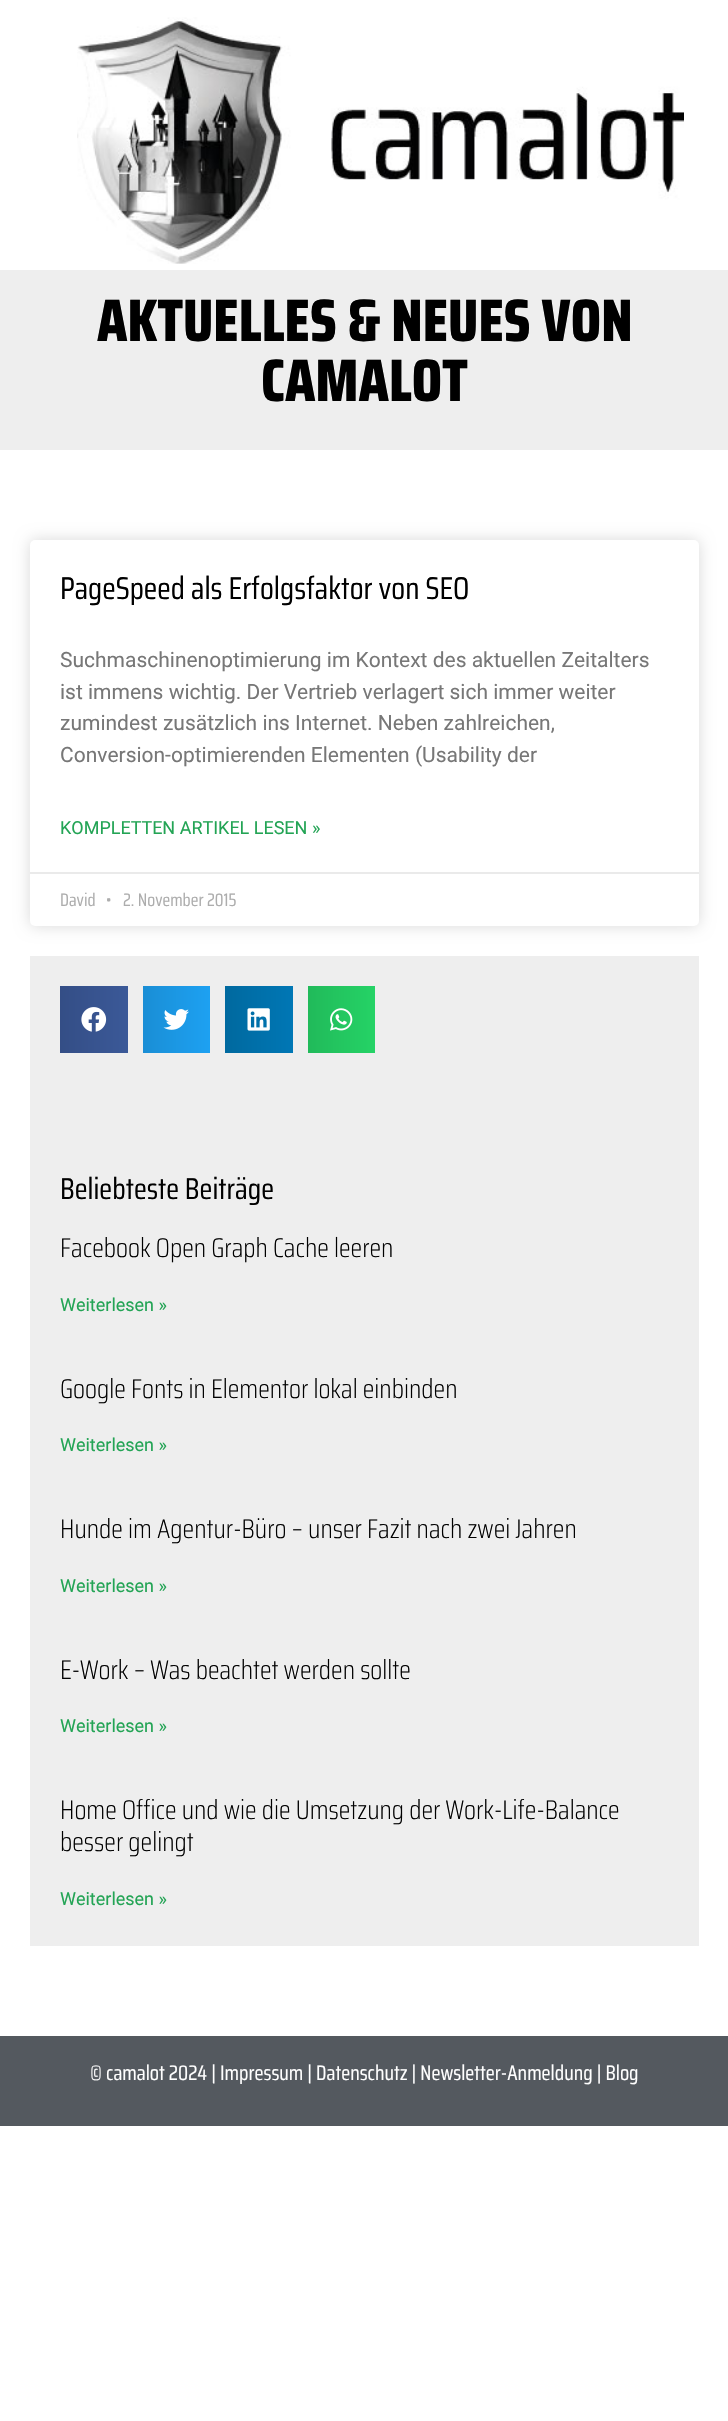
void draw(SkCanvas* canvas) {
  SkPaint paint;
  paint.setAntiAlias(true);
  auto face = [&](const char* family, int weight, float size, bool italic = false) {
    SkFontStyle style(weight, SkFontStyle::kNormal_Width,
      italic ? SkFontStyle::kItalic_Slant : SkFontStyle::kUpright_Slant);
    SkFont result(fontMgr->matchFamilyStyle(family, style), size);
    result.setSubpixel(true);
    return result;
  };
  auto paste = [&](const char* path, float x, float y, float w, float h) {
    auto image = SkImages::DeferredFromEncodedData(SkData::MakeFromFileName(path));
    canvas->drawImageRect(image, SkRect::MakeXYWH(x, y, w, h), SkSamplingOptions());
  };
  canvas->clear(0xffffffff);
  paste("img/1.png", 77, 17, 607, 247);
  paint.setColor(0xffeeeeee);
  canvas->drawRect(SkRect::MakeXYWH(0, 270, 728, 180), paint);
  paint.setColor(0x26000000);
  paint.setMaskFilter(SkMaskFilter::MakeBlur(kNormal_SkBlurStyle, 7.5f));
  canvas->drawRoundRect(SkRect::MakeXYWH(30, 540, 669, 386), 5, 5, paint);
  paint.setMaskFilter(nullptr);
  paint.setColor(0xffffffff);
  canvas->drawRoundRect(SkRect::MakeXYWH(30, 540, 669, 386), 5, 5, paint);
  paint.setColor(0xffeaeaea);
  canvas->drawRect(SkRect::MakeXYWH(30, 872, 669, 2), paint);
  paint.setColor(0xffeeeeee);
  canvas->drawRect(SkRect::MakeXYWH(30, 956, 669, 990), paint);
  {
    const SkColor colors[] = {0xff344e86, 0xff3b5998};
    const float stops[] = {0, 1};
    const SkPoint ends[] = {{60, 1019}, {128, 1019}};
    paint.setShader(SkGradientShader::MakeLinear(ends, colors, stops, 2, SkTileMode::kClamp));
    paint.setAlpha(255);
  }
  canvas->drawRect(SkRect::MakeXYWH(60, 986, 68, 67), paint);
  paste("img/2.png", 81, 1007, 26, 25);
  {
    const SkColor colors[] = {0xff1a8ed5, 0xff1da1f2};
    const float stops[] = {0, 1};
    const SkPoint ends[] = {{143, 1019}, {210, 1019}};
    paint.setShader(SkGradientShader::MakeLinear(ends, colors, stops, 2, SkTileMode::kClamp));
    paint.setAlpha(255);
  }
  canvas->drawRect(SkRect::MakeXYWH(143, 986, 67, 67), paint);
  paste("img/3.png", 163, 1009, 26, 21);
  {
    const SkColor colors[] = {0xff00699f, 0xff0077b5};
    const float stops[] = {0, 1};
    const SkPoint ends[] = {{225, 1019}, {293, 1019}};
    paint.setShader(SkGradientShader::MakeLinear(ends, colors, stops, 2, SkTileMode::kClamp));
    paint.setAlpha(255);
  }
  canvas->drawRect(SkRect::MakeXYWH(225, 986, 68, 67), paint);
  paste("img/4.png", 247, 1008, 23, 23);
  {
    const SkColor colors[] = {0xff21ba5a, 0xff25d366};
    const float stops[] = {0, 1};
    const SkPoint ends[] = {{308, 1019}, {375, 1019}};
    paint.setShader(SkGradientShader::MakeLinear(ends, colors, stops, 2, SkTileMode::kClamp));
    paint.setAlpha(255);
  }
  canvas->drawRect(SkRect::MakeXYWH(308, 986, 67, 67), paint);
  paste("img/5.png", 330, 1008, 23, 23);
  paint.setShader(nullptr);
  paint.setColor(0xff54595f);
  canvas->drawRect(SkRect::MakeXYWH(0, 2036, 728, 90), paint);
  auto f0 = face("Saira Condensed", 800, 60);
  paint.setColor(0xff000000);
  canvas->drawString("AKTUELLES & NEUES VON", 97, 341, f0, paint);
  canvas->drawString("CAMALOT", 261, 401, f0, paint);
  auto f1 = face("Saira Condensed", 400, 31.5f);
  canvas->drawString("PageSpeed als Erfolgsfaktor von SEO", 60, 599, f1, paint);
  auto f2 = face("Roboto", 400, 21);
  paint.setColor(0xff777777);
  {
    const struct { const char* s; float x, y; } items[] = {
      {"Suchmaschinenoptimierung im Kontext des aktuellen Zeitalters", 60, 667},
      {"ist immens wichtig. Der Vertrieb verlagert sich immer weiter", 60, 699},
      {"zumindest zusätzlich ins Internet. Neben zahlreichen,", 60, 730},
      {"Conversion-optimierenden Elementen (Usability der", 60, 762},
    };
    for (auto [s, x, y] : items) {
      canvas->drawString(s, x, y, f2, paint);
    }
  }
  auto f3 = face("Roboto", 400, 18);
  paint.setColor(0xff23a455);
  canvas->drawString("KOMPLETTEN ARTIKEL LESEN »", 60, 834, f3, paint);
  auto f4 = face("Saira Condensed", 400, 18);
  paint.setColor(0xffadadad);
  {
    const struct { const char* s; float x, y; } items[] = {
      {"David", 60, 906},
      {"•", 106, 906},
      {"2. November 2015", 123, 906},
    };
    for (auto [s, x, y] : items) {
      canvas->drawString(s, x, y, f4, paint);
    }
  }
  auto f5 = face("Saira Condensed", 400, 30);
  paint.setColor(0xff000000);
  canvas->drawString("Beliebteste Beiträge", 60, 1199, f5, paint);
  auto f6 = face("Saira Condensed", 200, 27);
  canvas->drawString("Facebook Open Graph Cache leeren", 60, 1257, f6, paint);
  paint.setColor(0xff23a455);
  canvas->drawString("Weiterlesen »", 60, 1311, f3, paint);
  paint.setColor(0xff000000);
  canvas->drawString("Google Fonts in Elementor lokal einbinden", 60, 1398, f6, paint);
  paint.setColor(0xff23a455);
  canvas->drawString("Weiterlesen »", 60, 1451, f3, paint);
  paint.setColor(0xff000000);
  canvas->drawString("Hunde im Agentur-Büro – unser Fazit nach zwei Jahren", 60, 1538, f6, paint);
  paint.setColor(0xff23a455);
  canvas->drawString("Weiterlesen »", 60, 1592, f3, paint);
  paint.setColor(0xff000000);
  canvas->drawString("E-Work – Was beachtet werden sollte", 60, 1679, f6, paint);
  paint.setColor(0xff23a455);
  canvas->drawString("Weiterlesen »", 60, 1732, f3, paint);
  paint.setColor(0xff000000);
  canvas->drawString("Home Office und wie die Umsetzung der Work-Life-Balance", 60, 1819, f6, paint);
  canvas->drawString("besser gelingt", 60, 1851, f6, paint);
  paint.setColor(0xff23a455);
  canvas->drawString("Weiterlesen »", 60, 1905, f3, paint);
  auto f7 = face("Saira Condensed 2", 400, 21);
  paint.setColor(0xffffffff);
  canvas->drawString("© camalot 2024 | Impressum | Datenschutz | Newsletter-Anmeldung | Blog", 90, 2080, f7, paint);
}
